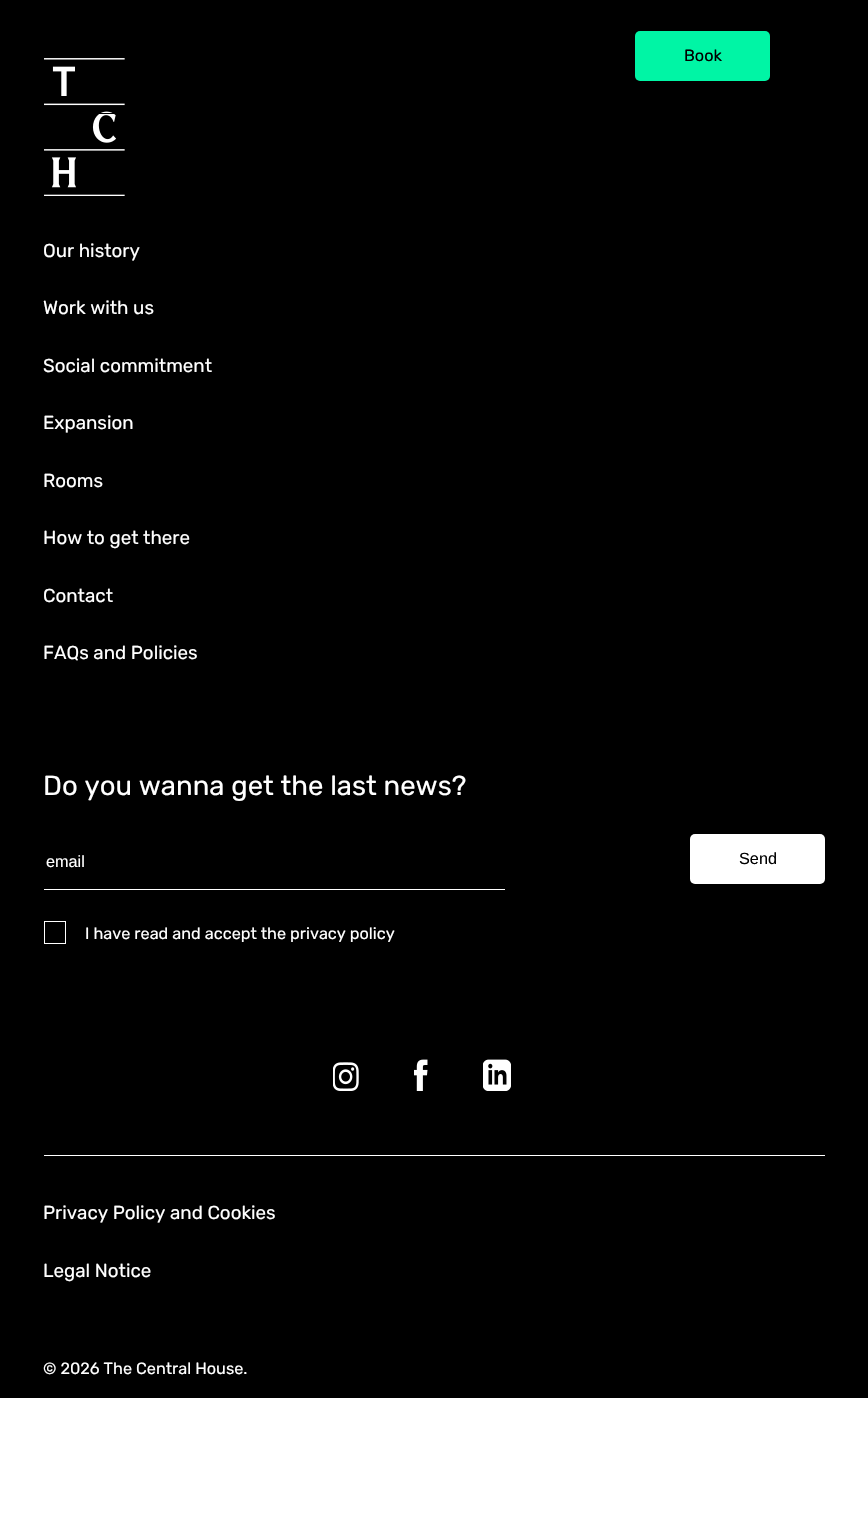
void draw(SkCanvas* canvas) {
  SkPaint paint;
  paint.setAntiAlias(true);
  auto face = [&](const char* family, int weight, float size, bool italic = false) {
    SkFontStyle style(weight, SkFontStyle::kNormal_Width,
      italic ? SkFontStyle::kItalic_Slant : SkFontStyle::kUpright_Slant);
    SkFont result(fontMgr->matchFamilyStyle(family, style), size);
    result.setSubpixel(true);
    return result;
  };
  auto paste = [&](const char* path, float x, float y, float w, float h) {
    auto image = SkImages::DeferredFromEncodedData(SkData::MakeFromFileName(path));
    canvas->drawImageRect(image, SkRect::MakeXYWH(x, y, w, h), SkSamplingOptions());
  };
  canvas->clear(0xffffffff);
  paint.setColor(0xff000000);
  canvas->drawRect(SkRect::MakeXYWH(0, 0, 868, 1398), paint);
  paste("img/1.png", 44, 58, 81, 138);
  canvas->drawRect(SkRect::MakeXYWH(99, 113, 16, 1), paint);
  paint.setColor(0xff00f5a5);
  canvas->drawRoundRect(SkRect::MakeXYWH(635, 31, 135, 50), 5, 5, paint);
  paint.setColor(0xffffffff);
  canvas->drawRect(SkRect::MakeXYWH(44, 889, 461, 1), paint);
  canvas->drawRoundRect(SkRect::MakeXYWH(690, 834, 135, 50), 5, 5, paint);
  paint.setStroke(true);
  paint.setStrokeWidth(1);
  canvas->drawRect(SkRect::MakeXYWH(44.5f, 921.5f, 21, 22), paint);
  paste("img/2.png", 333, 1062, 26, 29);
  paste("img/3.png", 414, 1059, 14, 32);
  paste("img/4.png", 483, 1059, 28, 32);
  paint.setStroke(false);
  canvas->drawRect(SkRect::MakeXYWH(44, 1155, 781, 1), paint);
  auto f0 = face("Rubik", 300, 16.25f);
  paint.setColor(0xff000000);
  canvas->drawString("Book", 684, 61, f0, paint);
  auto f1 = face("Rubik", 300, 18.75f);
  paint.setColor(0xffffffff);
  {
    const struct { const char* s; float x, y; } items[] = {
      {"Our history", 43, 257},
      {"Work with us", 43, 314},
      {"Social commitment", 43, 372},
      {"Expansion", 43, 429},
      {"Rooms", 43, 487},
      {"How to get there", 43, 544},
      {"Contact", 43, 602},
      {"FAQs and Policies", 43, 659},
    };
    for (auto [s, x, y] : items) {
      canvas->drawString(s, x, y, f1, paint);
    }
  }
  auto f2 = face("Rubik", 300, 27.5f);
  canvas->drawString("Do you wanna get the last news?", 43, 795, f2, paint);
  auto f3 = face("Liberation Sans", 400, 16.25f);
  canvas->drawString("email", 46, 867, f3, paint);
  paint.setColor(0xff000000);
  canvas->drawString("Send", 739, 864, f3, paint);
  paint.setColor(0xffffffff);
  canvas->drawString("I have read and accept the privacy policy", 85, 939, f0, paint);
  canvas->drawString("Privacy Policy and Cookies", 43, 1219, f1, paint);
  canvas->drawString("Legal Notice", 43, 1277, f1, paint);
  canvas->drawString("© 2026 The Central House.", 43, 1374, f0, paint);
}
